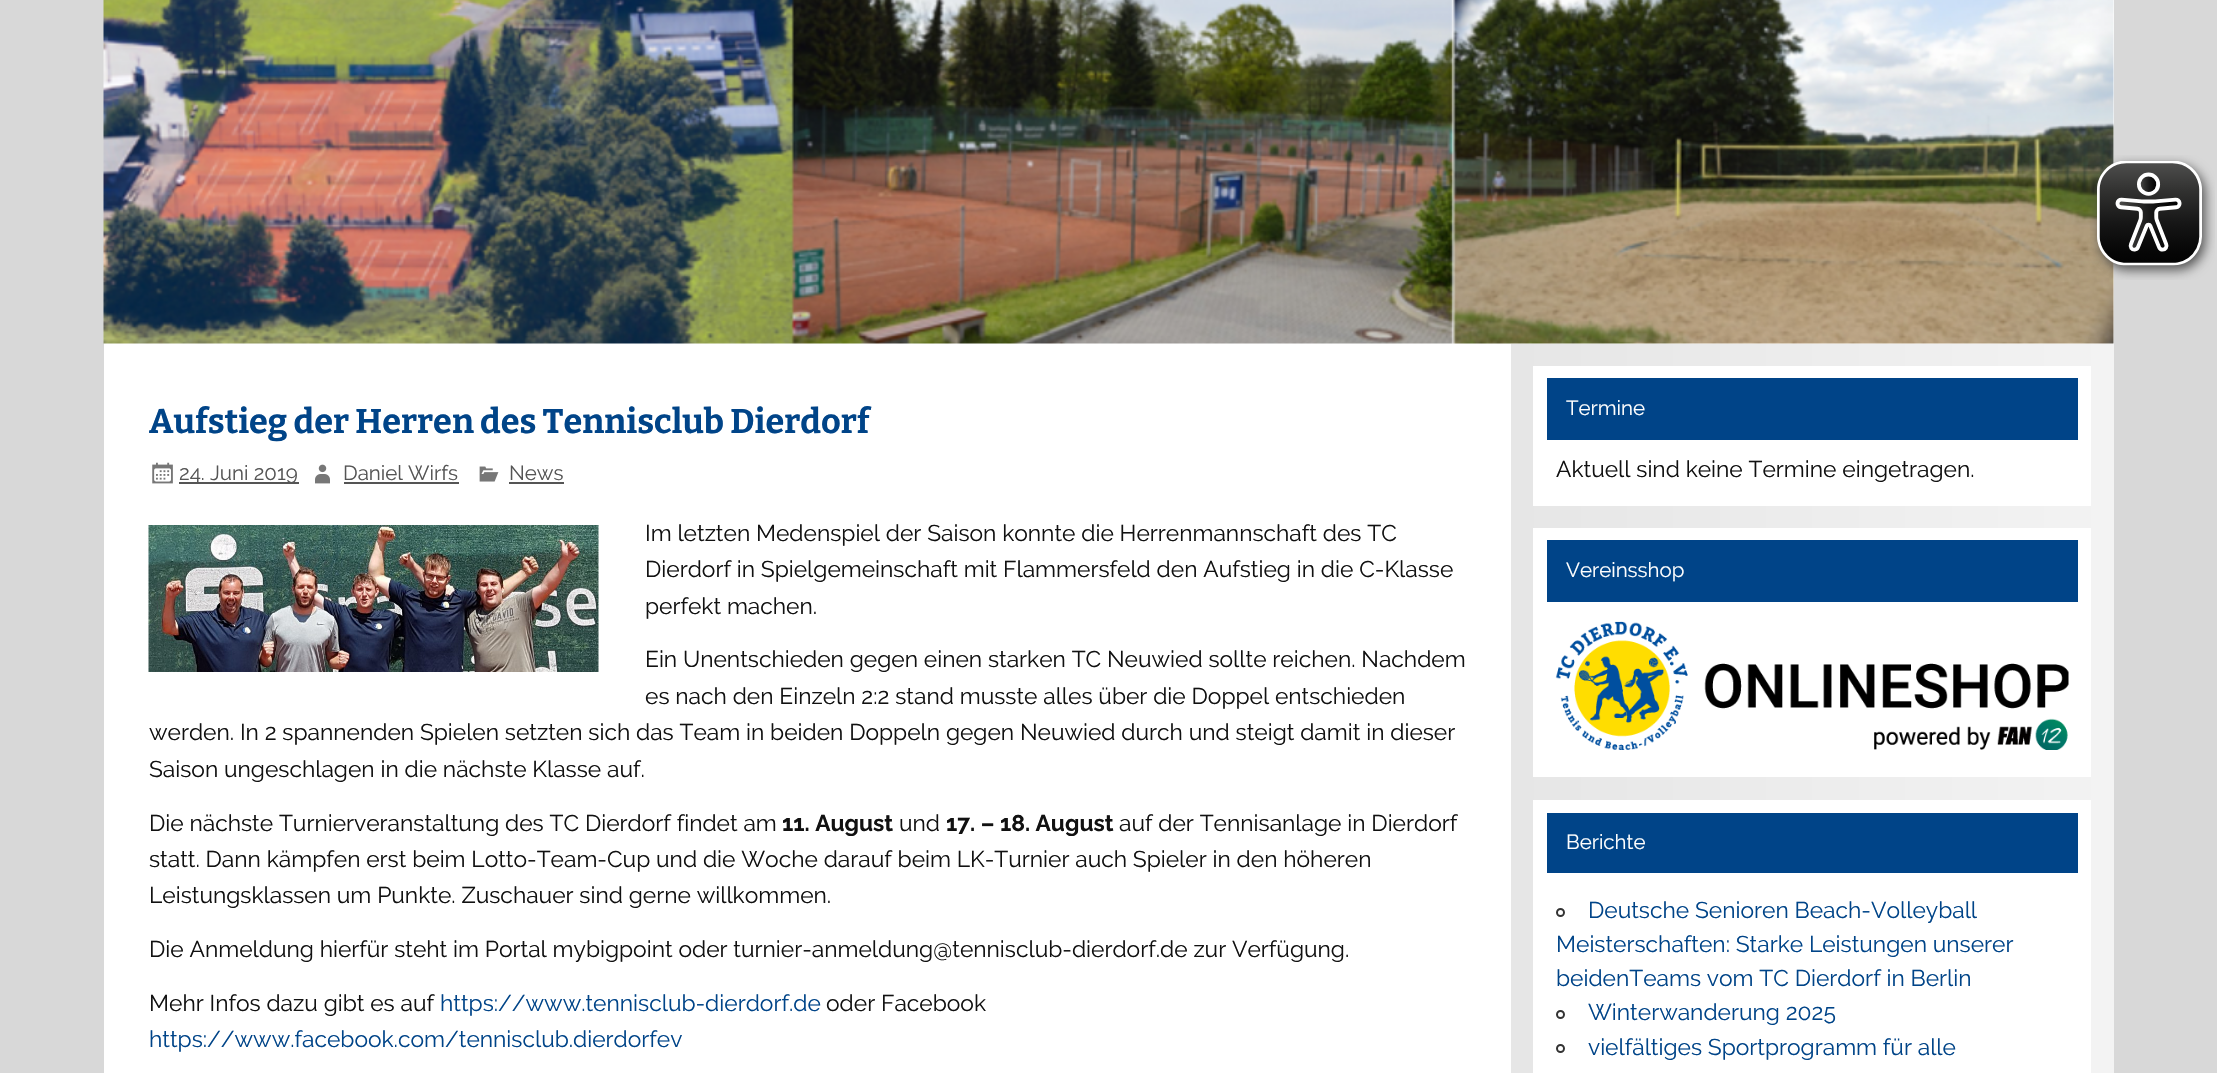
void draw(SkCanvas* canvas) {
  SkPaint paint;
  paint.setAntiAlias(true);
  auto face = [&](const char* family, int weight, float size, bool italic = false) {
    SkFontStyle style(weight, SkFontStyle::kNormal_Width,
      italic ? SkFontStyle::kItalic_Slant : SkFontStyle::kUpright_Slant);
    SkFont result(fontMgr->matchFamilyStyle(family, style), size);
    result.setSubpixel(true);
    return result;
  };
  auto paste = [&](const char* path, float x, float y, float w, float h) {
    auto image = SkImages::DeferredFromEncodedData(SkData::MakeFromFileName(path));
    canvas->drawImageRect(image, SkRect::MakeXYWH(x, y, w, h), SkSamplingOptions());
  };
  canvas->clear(0xffd8d8d8);
  paint.setColor(0xffffffff);
  canvas->drawRect(SkRect::MakeXYWH(104, 0, 2010, 1073), paint);
  paste("img/2.png", 103, 0, 2011, 344);
  paste("img/1.png", 2090, 155, 125, 125);
  paste("img/3.png", 152, 462, 21, 22);
  paint.setColor(0xff555555);
  canvas->drawRect(SkRect::MakeXYWH(179, 482, 120, 2), paint);
  paste("img/4.png", 315, 464, 15, 20);
  canvas->drawRect(SkRect::MakeXYWH(344, 482, 115, 2), paint);
  paste("img/5.png", 479, 466, 20, 16);
  canvas->drawRect(SkRect::MakeXYWH(509, 482, 55, 2), paint);
  paste("img/6.png", 148, 525, 451, 147);
  {
    const SkColor colors[] = {0xffe6e6e6, 0xfff3f3f3};
    const float stops[] = {0, 1};
    const SkPoint ends[] = {{1511, 790}, {2114, 790}};
    paint.setShader(SkGradientShader::MakeLinear(ends, colors, stops, 2, SkTileMode::kClamp));
    paint.setAlpha(255);
  }
  canvas->drawRect(SkRect::MakeXYWH(1511, 344, 603, 729), paint);
  paint.setShader(nullptr);
  {
    const struct { float x, y, w, h; SkColor color; } items[] = {
      {1533, 366, 558, 140, 0xffffffff},
      {1547, 378, 531, 62, 0xff004488},
      {1533, 528, 558, 249, 0xffffffff},
      {1547, 540, 531, 62, 0xff004488},
    };
    for (auto [x, y, w, h, color] : items) {
      paint.setColor(color);
      canvas->drawRect(SkRect::MakeXYWH(x, y, w, h), paint);
    }
  }
  paste("img/7.png", 1555, 621, 514, 129);
  paint.setColor(0xffffffff);
  canvas->drawRect(SkRect::MakeXYWH(1533, 800, 558, 273), paint);
  paint.setColor(0xff004488);
  canvas->drawRect(SkRect::MakeXYWH(1547, 813, 531, 60), paint);
  paint.setStroke(true);
  paint.setStrokeWidth(2);
  paint.setColor(0xff333333);
  canvas->drawCircle(1560.5f, 912.5f, 3.5f, paint);
  canvas->drawCircle(1560.5f, 1014.5f, 3.5f, paint);
  canvas->drawCircle(1560.5f, 1048.5f, 3.5f, paint);
  auto f0 = face("Bitter", 700, 34.2f);
  paint.setStroke(false);
  paint.setColor(0xff004488);
  canvas->drawString("Aufstieg der Herren des Tennisclub Dierdorf", 149, 433, f0, paint);
  auto f1 = face("Raleway", 400, 20.5f);
  paint.setColor(0xff555555);
  {
    const struct { const char* s; float x, y; } items[] = {
      {"24. Juni 2019", 179, 480},
      {"Daniel Wirfs", 343, 480},
      {"News", 509, 480},
    };
    for (auto [s, x, y] : items) {
      canvas->drawString(s, x, y, f1, paint);
    }
  }
  auto f2 = face("Raleway", 400, 22.8f);
  paint.setColor(0xff111111);
  {
    const struct { const char* s; float x, y; } items[] = {
      {"Im letzten Medenspiel der Saison konnte die Herrenmannschaft des TC", 645, 541},
      {"Dierdorf in Spielgemeinschaft mit Flammersfeld den Aufstieg in die C-Klasse", 645, 577},
      {"perfekt machen.", 645, 614},
      {"Ein Unentschieden gegen einen starken TC Neuwied sollte reichen. Nachdem", 645, 667},
      {"es nach den Einzeln 2:2 stand musste alles über die Doppel entschieden", 645, 704},
      {"werden. In 2 spannenden Spielen setzten sich das Team in beiden Doppeln gegen Neuwied durch und steigt damit in dieser", 149, 740},
      {"Saison ungeschlagen in die nächste Klasse auf.", 149, 777},
      {"Die nächste Turnierveranstaltung des TC Dierdorf findet am", 149, 831},
    };
    for (auto [s, x, y] : items) {
      canvas->drawString(s, x, y, f2, paint);
    }
  }
  auto f3 = face("Raleway", 700, 22.8f);
  canvas->drawString("11. August", 782, 831, f3, paint);
  canvas->drawString("und", 899, 831, f2, paint);
  canvas->drawString("17. – 18. August", 946, 831, f3, paint);
  {
    const struct { const char* s; float x, y; } items[] = {
      {"auf der Tennisanlage in Dierdorf", 1119, 831},
      {"statt. Dann kämpfen erst beim Lotto-Team-Cup und die Woche darauf beim LK-Turnier auch Spieler in den höheren", 149, 867},
      {"Leistungsklassen um Punkte. Zuschauer sind gerne willkommen.", 149, 903},
      {"Die Anmeldung hierfür steht im Portal mybigpoint oder turnier-anmeldung@tennisclub-dierdorf.de zur Verfügung.", 149, 957},
      {"Mehr Infos dazu gibt es auf", 149, 1011},
    };
    for (auto [s, x, y] : items) {
      canvas->drawString(s, x, y, f2, paint);
    }
  }
  paint.setColor(0xff004488);
  canvas->drawString("https://www.tennisclub-dierdorf.de", 440, 1011, f2, paint);
  paint.setColor(0xff111111);
  canvas->drawString("oder Facebook", 826, 1011, f2, paint);
  paint.setColor(0xff004488);
  canvas->drawString("https://www.facebook.com/tennisclub.dierdorfev", 149, 1047, f2, paint);
  paint.setColor(0xffffffff);
  canvas->drawString("Termine", 1566, 415, f1, paint);
  paint.setColor(0xff111111);
  canvas->drawString("Aktuell sind keine Termine eingetragen.", 1556, 477, f2, paint);
  paint.setColor(0xffffffff);
  canvas->drawString("Vereinsshop", 1566, 577, f1, paint);
  canvas->drawString("Berichte", 1566, 849, f1, paint);
  paint.setColor(0xff004488);
  {
    const struct { const char* s; float x, y; } items[] = {
      {"Deutsche Senioren Beach-Volleyball", 1588, 918},
      {"Meisterschaften: Starke Leistungen unserer", 1556, 952},
      {"beidenTeams vom TC Dierdorf in Berlin", 1556, 986},
      {"Winterwanderung 2025", 1588, 1020},
      {"vielfältiges Sportprogramm für alle", 1588, 1055},
    };
    for (auto [s, x, y] : items) {
      canvas->drawString(s, x, y, f2, paint);
    }
  }
}
